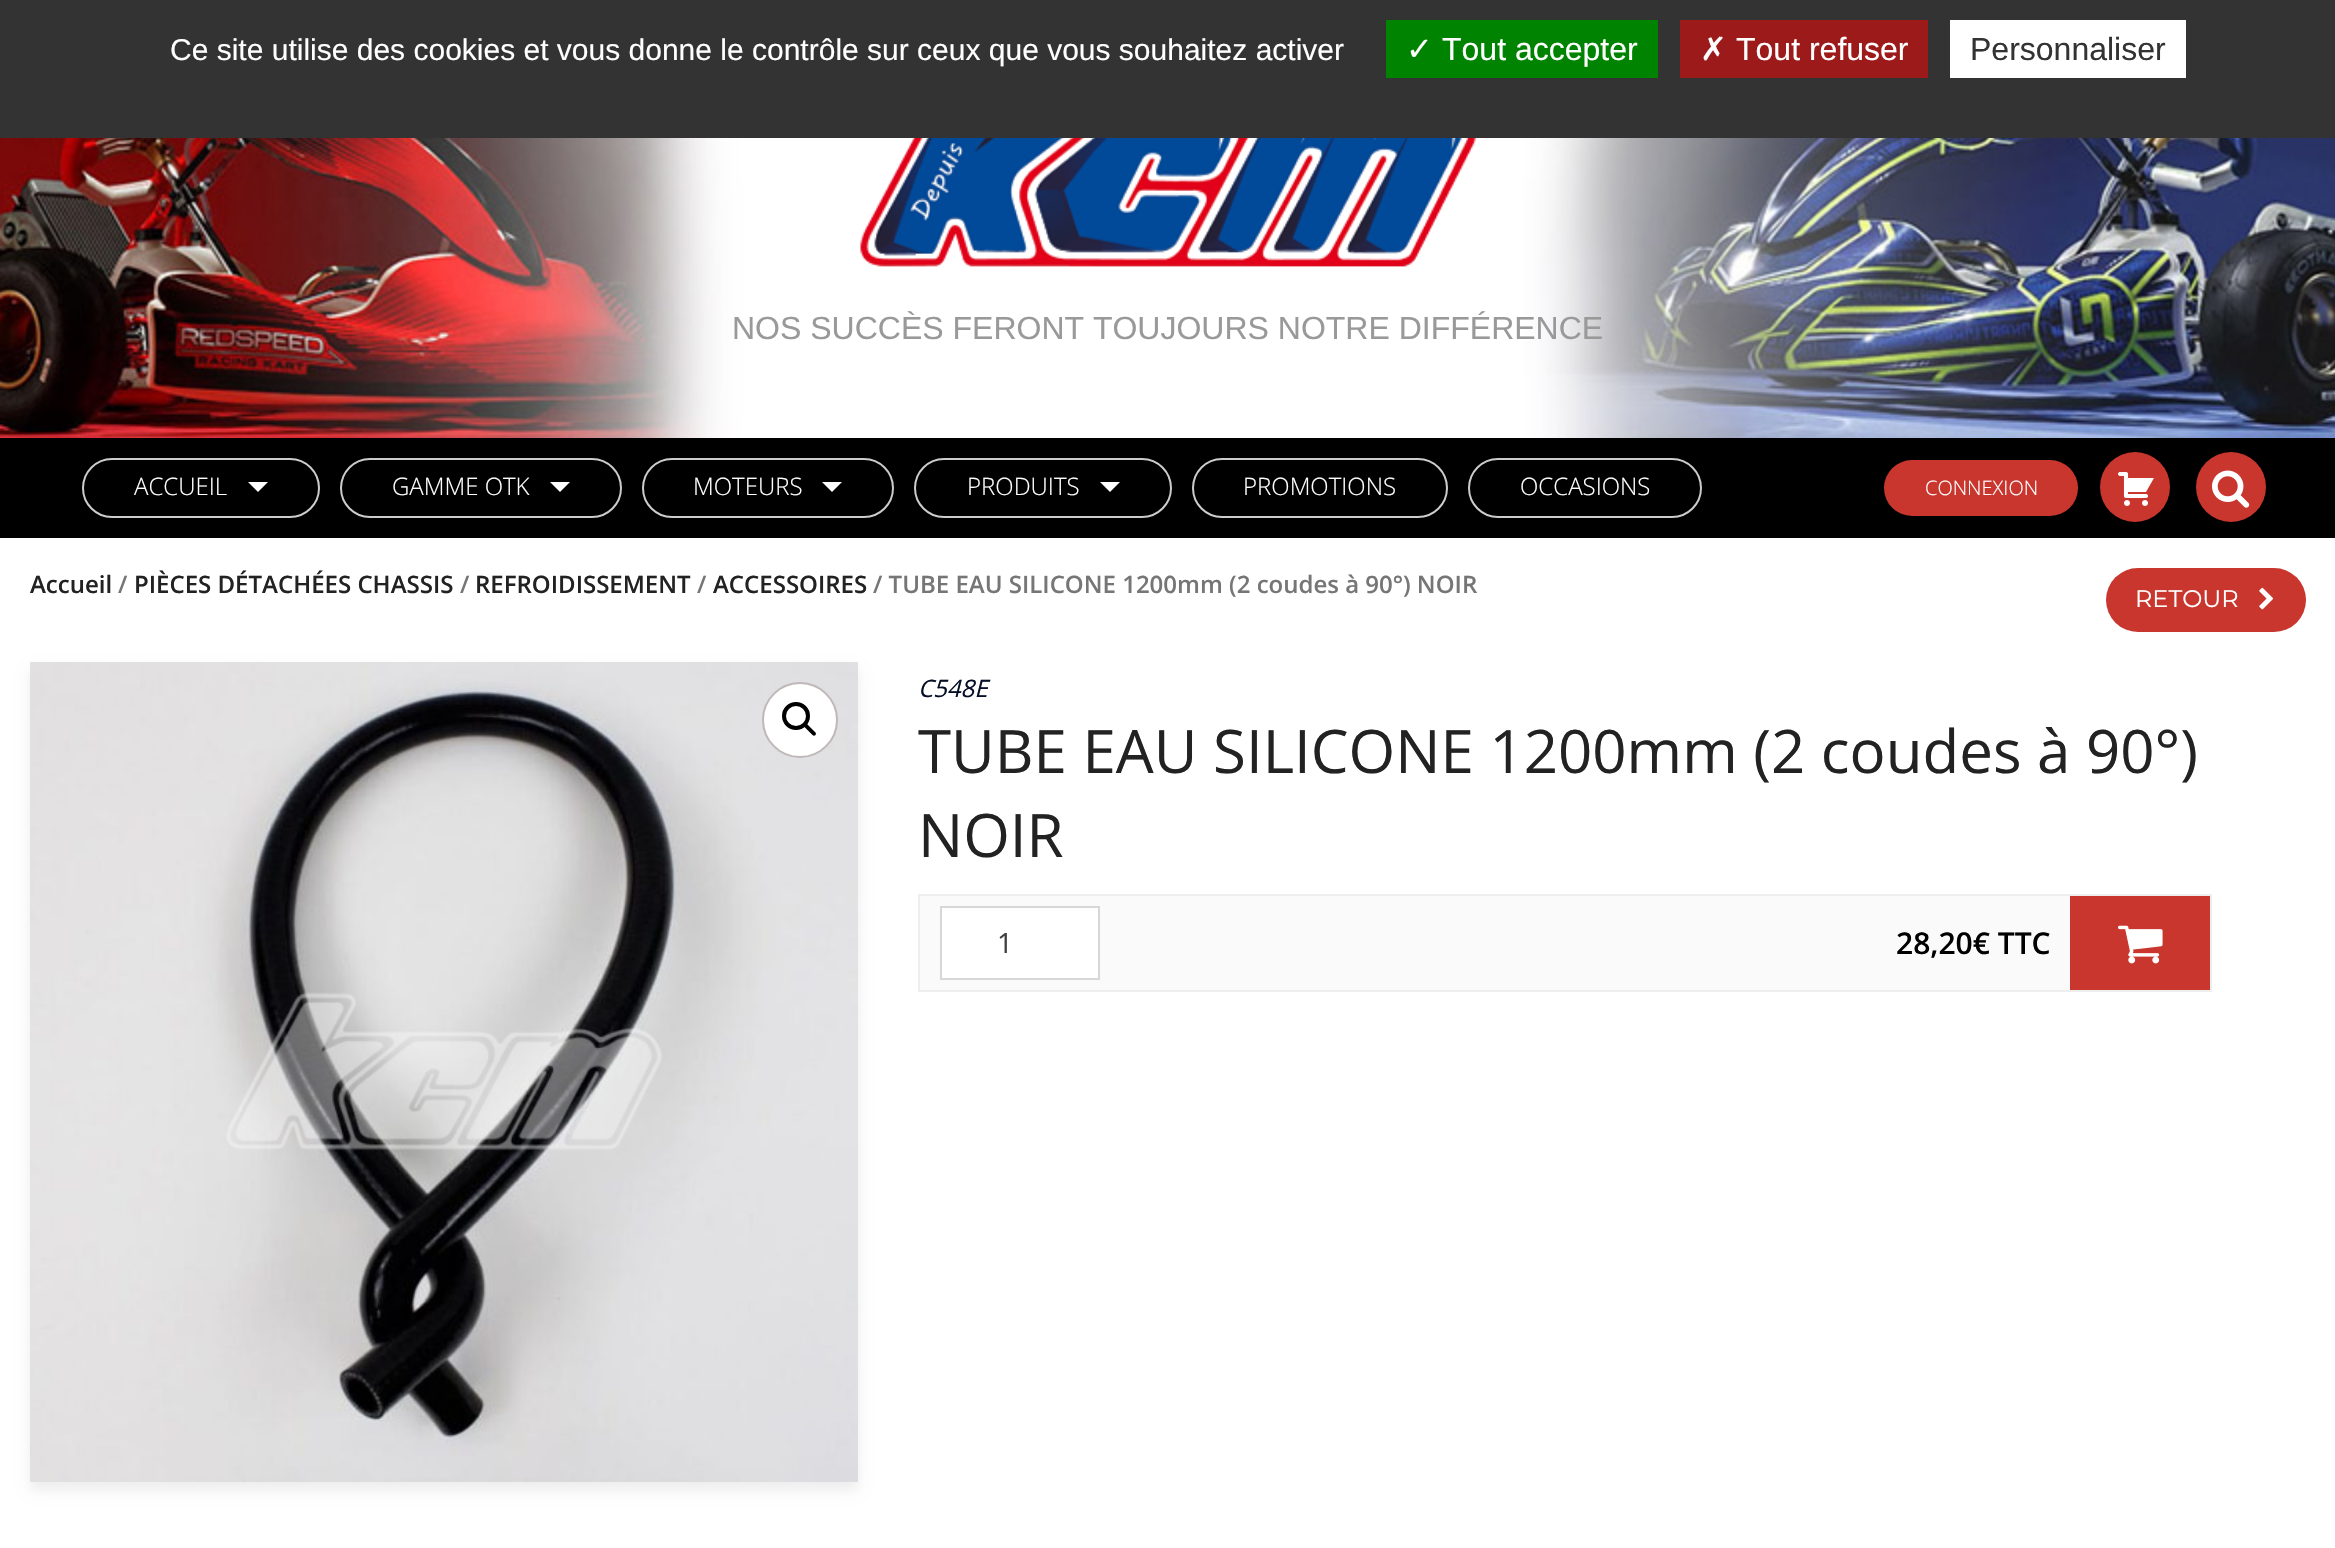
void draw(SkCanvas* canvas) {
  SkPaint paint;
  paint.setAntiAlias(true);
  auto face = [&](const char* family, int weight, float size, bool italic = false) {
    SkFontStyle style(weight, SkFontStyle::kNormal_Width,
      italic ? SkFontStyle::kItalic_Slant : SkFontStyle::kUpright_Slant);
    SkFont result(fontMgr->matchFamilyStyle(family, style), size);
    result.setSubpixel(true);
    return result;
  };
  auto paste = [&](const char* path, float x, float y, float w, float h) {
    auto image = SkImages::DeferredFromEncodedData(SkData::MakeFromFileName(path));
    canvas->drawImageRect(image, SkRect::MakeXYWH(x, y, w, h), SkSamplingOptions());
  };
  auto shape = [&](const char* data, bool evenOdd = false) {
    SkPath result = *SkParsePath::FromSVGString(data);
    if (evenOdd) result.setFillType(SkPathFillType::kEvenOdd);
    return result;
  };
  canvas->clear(0xffffffff);
  {
    const struct { float x, y, w, h; SkColor color; } items[] = {
      {0, 0, 2335, 138, 0xff333333},
      {1386, 20, 272, 58, 0xff008300},
      {1680, 20, 248, 58, 0xff9c1a1a},
      {1950, 20, 236, 58, 0xffffffff},
      {0, 438, 2335, 100, 0xff000000},
    };
    for (auto [x, y, w, h, color] : items) {
      paint.setColor(color);
      canvas->drawRect(SkRect::MakeXYWH(x, y, w, h), paint);
    }
  }
  paste("img/1.png", 0, 138, 2335, 300);
  paste("img/2.png", 860, 138, 616, 129);
  paint.setStroke(true);
  paint.setStrokeWidth(2);
  paint.setColor(0xffcccccc);
  canvas->drawRoundRect(SkRect::MakeXYWH(83, 459, 236, 58), 29, 29, paint);
  paint.setStroke(false);
  paint.setColor(0xffffffff);
  canvas->drawPath(shape("M248 482H268L258 492Z"), paint);
  paint.setStroke(true);
  paint.setColor(0xffcccccc);
  canvas->drawRoundRect(SkRect::MakeXYWH(341, 459, 280, 58), 29, 29, paint);
  paint.setStroke(false);
  paint.setColor(0xffffffff);
  canvas->drawPath(shape("M550 482H570L560 492Z"), paint);
  paint.setStroke(true);
  paint.setColor(0xffcccccc);
  canvas->drawRoundRect(SkRect::MakeXYWH(643, 459, 250, 58), 29, 29, paint);
  paint.setStroke(false);
  paint.setColor(0xffffffff);
  canvas->drawPath(shape("M822 482H842L832 492Z"), paint);
  paint.setStroke(true);
  paint.setColor(0xffcccccc);
  canvas->drawRoundRect(SkRect::MakeXYWH(915, 459, 256, 58), 29, 29, paint);
  paint.setStroke(false);
  paint.setColor(0xffffffff);
  canvas->drawPath(shape("M1100 482H1120L1110 492Z"), paint);
  paint.setStroke(true);
  paint.setColor(0xffcccccc);
  canvas->drawRoundRect(SkRect::MakeXYWH(1193, 459, 254, 58), 29, 29, paint);
  canvas->drawRoundRect(SkRect::MakeXYWH(1469, 459, 232, 58), 29, 29, paint);
  paint.setStroke(false);
  paint.setColor(0xffc9362e);
  canvas->drawRoundRect(SkRect::MakeXYWH(1884, 460, 194, 56), 28, 28, paint);
  canvas->drawCircle(2135, 487, 35, paint);
  paste("img/3.png", 2118, 472, 36, 34);
  canvas->drawCircle(2231, 487, 35, paint);
  paste("img/4.png", 2212, 470, 38, 38);
  canvas->drawRoundRect(SkRect::MakeXYWH(2106, 568, 200, 64), 32, 32, paint);
  paste("img/5.png", 2259, 587, 14, 23);
  paint.setColor(0x12000000);
  paint.setMaskFilter(SkMaskFilter::MakeBlur(kNormal_SkBlurStyle, 6));
  canvas->drawRect(SkRect::MakeXYWH(30, 670, 828, 820), paint);
  paint.setMaskFilter(nullptr);
  paste("img/6.png", 30, 662, 828, 820);
  paint.setColor(0xffffffff);
  canvas->drawCircle(800, 720, 37, paint);
  paint.setStroke(true);
  paint.setColor(0xffc0b8b8);
  canvas->drawCircle(800, 720, 37, paint);
  paint.setStrokeWidth(4);
  paint.setColor(0xff000000);
  canvas->drawCircle(796, 716, 12, paint);
  paint.setStroke(false);
  canvas->drawPath(shape("M804 724C805 723 806 723 807 724L815.5 732.5C816 733 816 734.5 815.5 735C814.5 736 813.5 736 812.5 735L804 726.5C803 726 803 724.5 804 724Z"), paint);
  paint.setStroke(true);
  paint.setStrokeWidth(2);
  paint.setColor(0xffeeeeee);
  canvas->drawRect(SkRect::MakeXYWH(919, 895, 1292, 96), paint);
  paint.setStroke(false);
  paint.setColor(0xfffafafa);
  canvas->drawRect(SkRect::MakeXYWH(920, 896, 1150, 94), paint);
  paint.setColor(0xffffffff);
  canvas->drawRect(SkRect::MakeXYWH(941, 907, 158, 72), paint);
  paint.setStroke(true);
  paint.setColor(0xffd7d7d7);
  canvas->drawRect(SkRect::MakeXYWH(941, 907, 158, 72), paint);
  paint.setStroke(false);
  paint.setColor(0xffc9362e);
  canvas->drawRect(SkRect::MakeXYWH(2070, 896, 140, 94), paint);
  paste("img/7.png", 2118, 925, 45, 39);
  auto f0 = face("Liberation Sans", 400, 30);
  paint.setColor(0xffffffff);
  canvas->drawString("Ce site utilise des cookies et vous donne le contrôle sur ceux que vous souhaitez activer", 170, 60, f0, paint);
  auto f1 = face("DejaVu Sans", 400, 32);
  canvas->drawString("✓", 1406, 60, f1, paint);
  auto f2 = face("Liberation Sans", 400, 32);
  canvas->drawString("Tout accepter", 1442, 60, f2, paint);
  canvas->drawString("✗", 1700, 60, f1, paint);
  canvas->drawString("Tout refuser", 1736, 60, f2, paint);
  paint.setColor(0xff333333);
  canvas->drawString("Personnaliser", 1970, 60, f2, paint);
  paint.setColor(0xff999999);
  canvas->drawString("NOS SUCCÈS FERONT TOUJOURS NOTRE DIFFÉRENCE", 732, 339, f2, paint);
  auto f3 = face("Open Sans", 300, 24);
  paint.setColor(0xffffffff);
  {
    const struct { const char* s; float x, y; } items[] = {
      {"ACCUEIL", 134, 495},
      {"GAMME OTK", 392, 495},
      {"MOTEURS", 693, 495},
      {"PRODUITS", 967, 495},
      {"PROMOTIONS", 1243, 495},
      {"OCCASIONS", 1520, 495},
    };
    for (auto [s, x, y] : items) {
      canvas->drawString(s, x, y, f3, paint);
    }
  }
  auto f4 = face("Open Sans", 300, 20);
  canvas->drawString("CONNEXION", 1925, 495, f4, paint);
  auto f5 = face("Open Sans", 600, 24);
  paint.setColor(0xff222222);
  canvas->drawString("Accueil", 30, 593, f5, paint);
  paint.setColor(0xff767676);
  canvas->drawString("/", 118, 593, f5, paint);
  paint.setColor(0xff222222);
  canvas->drawString("PIÈCES DÉTACHÉES CHASSIS", 134, 593, f5, paint);
  paint.setColor(0xff767676);
  canvas->drawString("/", 460, 593, f5, paint);
  paint.setColor(0xff222222);
  canvas->drawString("REFROIDISSEMENT", 475, 593, f5, paint);
  paint.setColor(0xff767676);
  canvas->drawString("/", 697, 593, f5, paint);
  paint.setColor(0xff222222);
  canvas->drawString("ACCESSOIRES", 713, 593, f5, paint);
  paint.setColor(0xff767676);
  canvas->drawString("/ TUBE EAU SILICONE 1200mm (2 coudes à 90°) NOIR", 873, 593, f5, paint);
  auto f6 = face("Montserrat", 400, 24);
  paint.setColor(0xffffffff);
  canvas->drawString("RETOUR", 2135, 607, f6, paint);
  auto f7 = face("Open Sans", 400, 24, true);
  paint.setColor(0xff050f25);
  canvas->drawString("C548E", 918, 697, f7, paint);
  auto f8 = face("Open Sans", 400, 60);
  paint.setColor(0xff222222);
  canvas->drawString("TUBE EAU SILICONE 1200mm (2 coudes à 90°)", 918, 773, f8, paint);
  canvas->drawString("NOIR", 918, 857, f8, paint);
  auto f9 = face("Open Sans", 400, 28);
  paint.setColor(0xff404040);
  canvas->drawString("1", 997, 953, f9, paint);
  auto f10 = face("Open Sans", 600, 30);
  paint.setColor(0xff000000);
  canvas->drawString("28,20€ TTC", 1896, 954, f10, paint);
}
